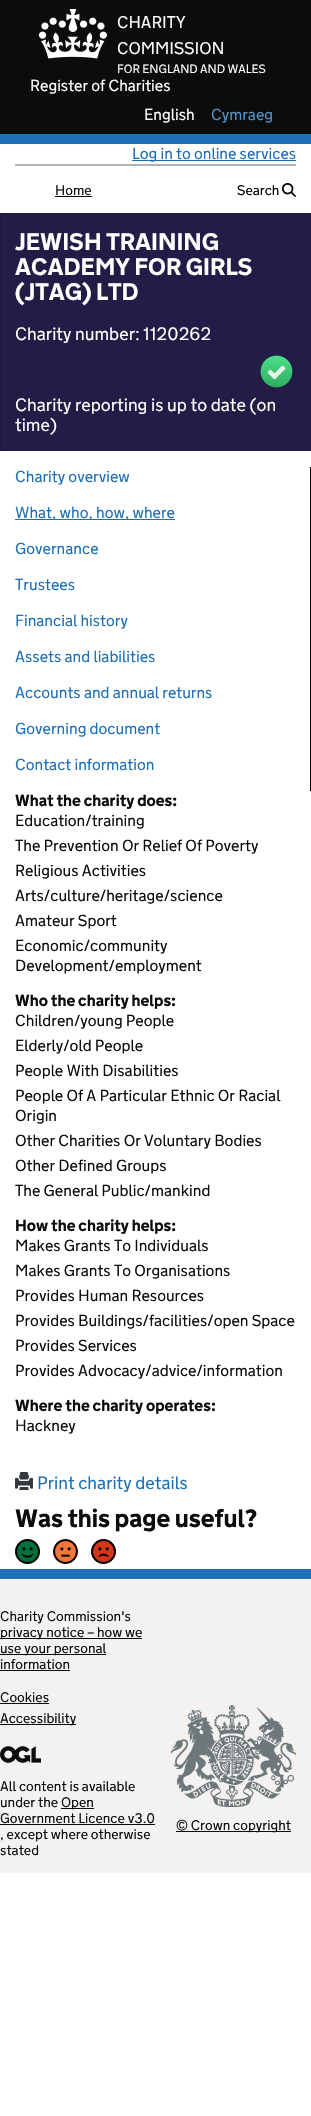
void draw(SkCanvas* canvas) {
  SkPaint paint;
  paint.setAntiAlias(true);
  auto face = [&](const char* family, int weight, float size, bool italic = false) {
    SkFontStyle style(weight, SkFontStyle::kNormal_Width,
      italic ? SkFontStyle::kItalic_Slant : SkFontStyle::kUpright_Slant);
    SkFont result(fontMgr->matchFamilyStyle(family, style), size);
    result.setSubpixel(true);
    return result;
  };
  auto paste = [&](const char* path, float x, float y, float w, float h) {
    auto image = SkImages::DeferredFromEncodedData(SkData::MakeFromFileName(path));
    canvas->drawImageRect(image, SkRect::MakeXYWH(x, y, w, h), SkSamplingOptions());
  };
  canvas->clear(0xffffffff);
  paint.setColor(0xff0b0c0c);
  canvas->drawRect(SkRect::MakeXYWH(0, 0, 311, 134), paint);
  paint.setColor(0xff1d70b8);
  canvas->drawRect(SkRect::MakeXYWH(0, 134, 311, 10), paint);
  paste("img/1.png", 38, 9, 69, 50);
  {
    const struct { float x, y, w, h; SkColor color; } items[] = {
      {15, 164, 281, 2, 0xffb1b4b6},
      {132, 160, 164, 1, 0xff1d70b8},
      {55, 196, 37, 1, 0xff0b0c0c},
    };
    for (auto [x, y, w, h, color] : items) {
      paint.setColor(color);
      canvas->drawRect(SkRect::MakeXYWH(x, y, w, h), paint);
    }
  }
  paste("img/2.png", 282, 183, 14, 14);
  paint.setColor(0xff201547);
  canvas->drawRect(SkRect::MakeXYWH(0, 213, 1, 238), paint);
  paint.setColor(0xff211d47);
  canvas->drawRect(SkRect::MakeXYWH(1, 213, 310, 238), paint);
  paste("img/3.png", 260, 355, 33, 33);
  paint.setColor(0xff000000);
  canvas->drawRect(SkRect::MakeXYWH(310, 467, 1, 324), paint);
  paint.setColor(0xff1d70b8);
  canvas->drawRect(SkRect::MakeXYWH(15, 519, 160, 1), paint);
  paste("img/4.png", 15, 1472, 18, 18);
  paint.setColor(0xff00703c);
  canvas->drawCircle(27.5f, 1551.5f, 12.5f, paint);
  paste("img/5.png", 15, 1539, 25, 25);
  paint.setColor(0xfff47738);
  canvas->drawCircle(65.5f, 1551.5f, 12.5f, paint);
  paste("img/6.png", 53, 1539, 25, 25);
  paint.setColor(0xffd4351c);
  canvas->drawCircle(103.5f, 1551.5f, 12.5f, paint);
  paste("img/7.png", 91, 1539, 25, 25);
  {
    const struct { float x, y, w, h; SkColor color; } items[] = {
      {0, 1579, 311, 294, 0xfff3f2f1},
      {0, 1569, 311, 10, 0xff1d70b8},
      {0, 1638, 142, 1, 0xff0b0c0c},
      {0, 1654, 106, 1, 0xff0b0c0c},
      {0, 1670, 70, 1, 0xff0b0c0c},
      {0, 1703, 49, 1, 0xff0b0c0c},
      {0, 1724, 76, 1, 0xff0b0c0c},
    };
    for (auto [x, y, w, h, color] : items) {
      paint.setColor(color);
      canvas->drawRect(SkRect::MakeXYWH(x, y, w, h), paint);
    }
  }
  paste("img/8.png", 0, 1746, 41, 17);
  canvas->drawRect(SkRect::MakeXYWH(61, 1808, 33, 1), paint);
  canvas->drawRect(SkRect::MakeXYWH(0, 1824, 155, 1), paint);
  paste("img/9.png", 171, 1705, 125, 102);
  canvas->drawRect(SkRect::MakeXYWH(176, 1831, 115, 1), paint);
  auto f0 = face("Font", 300, 17);
  paint.setColor(0xffffffff);
  canvas->drawString("CHARITY", 117, 28, f0, paint);
  canvas->drawString("COMMISSION", 117, 54, f0, paint);
  auto f1 = face("Font", 300, 12);
  canvas->drawString("FOR ENGLAND AND WALES", 117, 73, f1, paint);
  auto f2 = face("Font", 300, 16);
  canvas->drawString("Register of Charities", 30, 91, f2, paint);
  canvas->drawString("English", 144, 120, f2, paint);
  paint.setColor(0xff5694ca);
  canvas->drawString("Cymraeg", 211, 120, f2, paint);
  paint.setColor(0xff1d70b8);
  canvas->drawString("Log in to online services", 132, 159, f2, paint);
  auto f3 = face("Font", 300, 14);
  paint.setColor(0xff0b0c0c);
  canvas->drawString("Home", 55, 195, f3, paint);
  paint.setColor(0xff000000);
  canvas->drawString("Search", 237, 195, f3, paint);
  auto f4 = face("Font", 700, 24);
  paint.setColor(0xffffffff);
  {
    const struct { const char* s; float x, y; } items[] = {
      {"JEWISH TRAINING", 15, 250},
      {"ACADEMY FOR GIRLS", 15, 275},
      {"(JTAG) LTD", 15, 300},
    };
    for (auto [s, x, y] : items) {
      canvas->drawString(s, x, y, f4, paint);
    }
  }
  auto f5 = face("Font", 300, 18);
  {
    const struct { const char* s; float x, y; } items[] = {
      {"Charity number: 1120262", 15, 340},
      {"Charity reporting is up to date (on", 15, 411},
      {"time)", 15, 431},
    };
    for (auto [s, x, y] : items) {
      canvas->drawString(s, x, y, f5, paint);
    }
  }
  paint.setColor(0xff1d70b8);
  {
    const struct { const char* s; float x, y; } items[] = {
      {"Charity overview", 15, 482},
      {"What, who, how, where", 15, 518},
      {"Governance", 15, 554},
      {"Trustees", 15, 590},
      {"Financial history", 15, 626},
      {"Assets and liabilities", 15, 662},
      {"Accounts and annual returns", 15, 698},
      {"Governing document", 15, 734},
      {"Contact information", 15, 770},
    };
    for (auto [s, x, y] : items) {
      canvas->drawString(s, x, y, f2, paint);
    }
  }
  auto f6 = face("Font", 700, 16);
  paint.setColor(0xff0b0c0c);
  canvas->drawString("What the charity does:", 15, 806, f6, paint);
  {
    const struct { const char* s; float x, y; } items[] = {
      {"Education/training", 15, 826},
      {"The Prevention Or Relief Of Poverty", 15, 851},
      {"Religious Activities", 15, 876},
      {"Arts/culture/heritage/science", 15, 901},
      {"Amateur Sport", 15, 926},
      {"Economic/community", 15, 951},
      {"Development/employment", 15, 971},
    };
    for (auto [s, x, y] : items) {
      canvas->drawString(s, x, y, f2, paint);
    }
  }
  canvas->drawString("Who the charity helps:", 15, 1006, f6, paint);
  {
    const struct { const char* s; float x, y; } items[] = {
      {"Children/young People", 15, 1026},
      {"Elderly/old People", 15, 1051},
      {"People With Disabilities", 15, 1076},
      {"People Of A Particular Ethnic Or Racial", 15, 1101},
      {"Origin", 15, 1121},
      {"Other Charities Or Voluntary Bodies", 15, 1146},
      {"Other Defined Groups", 15, 1171},
      {"The General Public/mankind", 15, 1196},
    };
    for (auto [s, x, y] : items) {
      canvas->drawString(s, x, y, f2, paint);
    }
  }
  canvas->drawString("How the charity helps:", 15, 1231, f6, paint);
  {
    const struct { const char* s; float x, y; } items[] = {
      {"Makes Grants To Individuals", 15, 1251},
      {"Makes Grants To Organisations", 15, 1276},
      {"Provides Human Resources", 15, 1301},
      {"Provides Buildings/facilities/open Space", 15, 1326},
      {"Provides Services", 15, 1351},
      {"Provides Advocacy/advice/information", 15, 1376},
    };
    for (auto [s, x, y] : items) {
      canvas->drawString(s, x, y, f2, paint);
    }
  }
  canvas->drawString("Where the charity operates:", 15, 1411, f6, paint);
  canvas->drawString("Hackney", 15, 1431, f2, paint);
  paint.setColor(0xff1d70b8);
  canvas->drawString("Print charity details", 37, 1489, f5, paint);
  auto f7 = face("Font", 700, 25);
  paint.setColor(0xff0b0c0c);
  canvas->drawString("Was this page useful?", 15, 1527, f7, paint);
  {
    const struct { const char* s; float x, y; } items[] = {
      {"Charity Commission's", 0, 1621},
      {"privacy notice – how we", 0, 1637},
      {"use your personal", 0, 1653},
      {"information", 0, 1669},
      {"Cookies", 0, 1702},
      {"Accessibility", 0, 1723},
      {"All content is available", 0, 1791},
      {"under the", 0, 1807},
      {"Open", 61, 1807},
      {"Government Licence v3.0", 0, 1823},
      {", except where otherwise", 0, 1839},
      {"stated", 0, 1855},
      {"© Crown copyright", 176, 1830},
    };
    for (auto [s, x, y] : items) {
      canvas->drawString(s, x, y, f3, paint);
    }
  }
}
